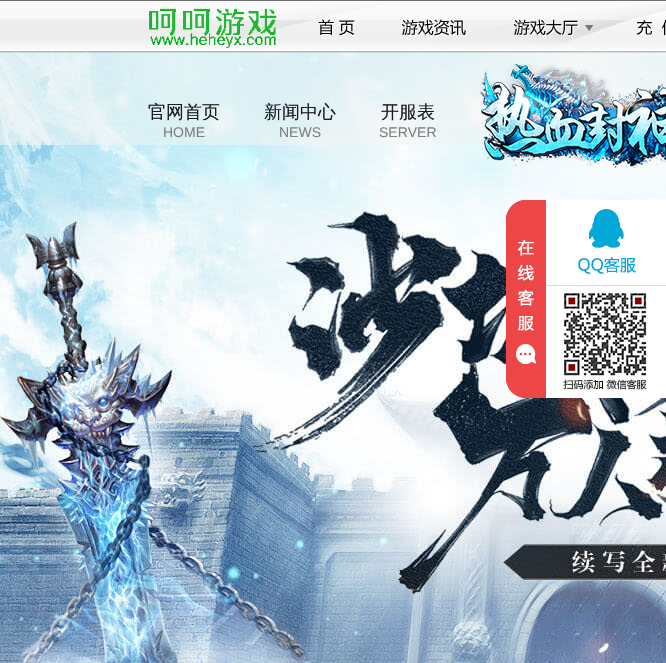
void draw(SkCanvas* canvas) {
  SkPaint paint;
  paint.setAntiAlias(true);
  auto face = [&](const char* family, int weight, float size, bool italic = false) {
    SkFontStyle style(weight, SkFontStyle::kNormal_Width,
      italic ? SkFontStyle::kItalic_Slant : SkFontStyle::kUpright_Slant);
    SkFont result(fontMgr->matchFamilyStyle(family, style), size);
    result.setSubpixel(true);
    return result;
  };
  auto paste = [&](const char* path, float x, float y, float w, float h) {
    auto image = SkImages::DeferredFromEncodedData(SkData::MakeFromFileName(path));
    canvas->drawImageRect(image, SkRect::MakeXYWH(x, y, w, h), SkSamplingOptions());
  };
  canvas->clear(0xffffffff);
  paste("img/1.png", 0, 51, 666, 612);
  paste("img/2.png", 0, 0, 666, 53);
  paste("img/3.png", 240, 4, 426, 41);
  paste("img/4.png", 149, 8, 128, 40);
  paste("img/5.png", 297, 17, 59, 19);
  paste("img/6.png", 399, 19, 68, 18);
  paste("img/7.png", 511, 19, 88, 24);
  paste("img/8.png", 617, 11, 49, 25);
  paste("img/9.png", 480, 64, 186, 107);
  paste("img/10.png", 506, 200, 160, 198);
  auto f0 = face("WenQuanYi Zen Hei", 500, 18);
  paint.setColor(0xff1a1a1a);
  canvas->drawString("官网首页", 148, 118, f0, paint);
  auto f1 = face("Liberation Sans", 400, 14);
  paint.setColor(0xff808080);
  canvas->drawString("HOME", 163, 137, f1, paint);
  paint.setColor(0xff1a1a1a);
  canvas->drawString("新闻中心", 264, 118, f0, paint);
  paint.setColor(0xff808080);
  canvas->drawString("NEWS", 279, 137, f1, paint);
  paint.setColor(0xff1a1a1a);
  canvas->drawString("开服表", 381, 118, f0, paint);
  paint.setColor(0xff808080);
  canvas->drawString("SERVER", 379, 137, f1, paint);
}
